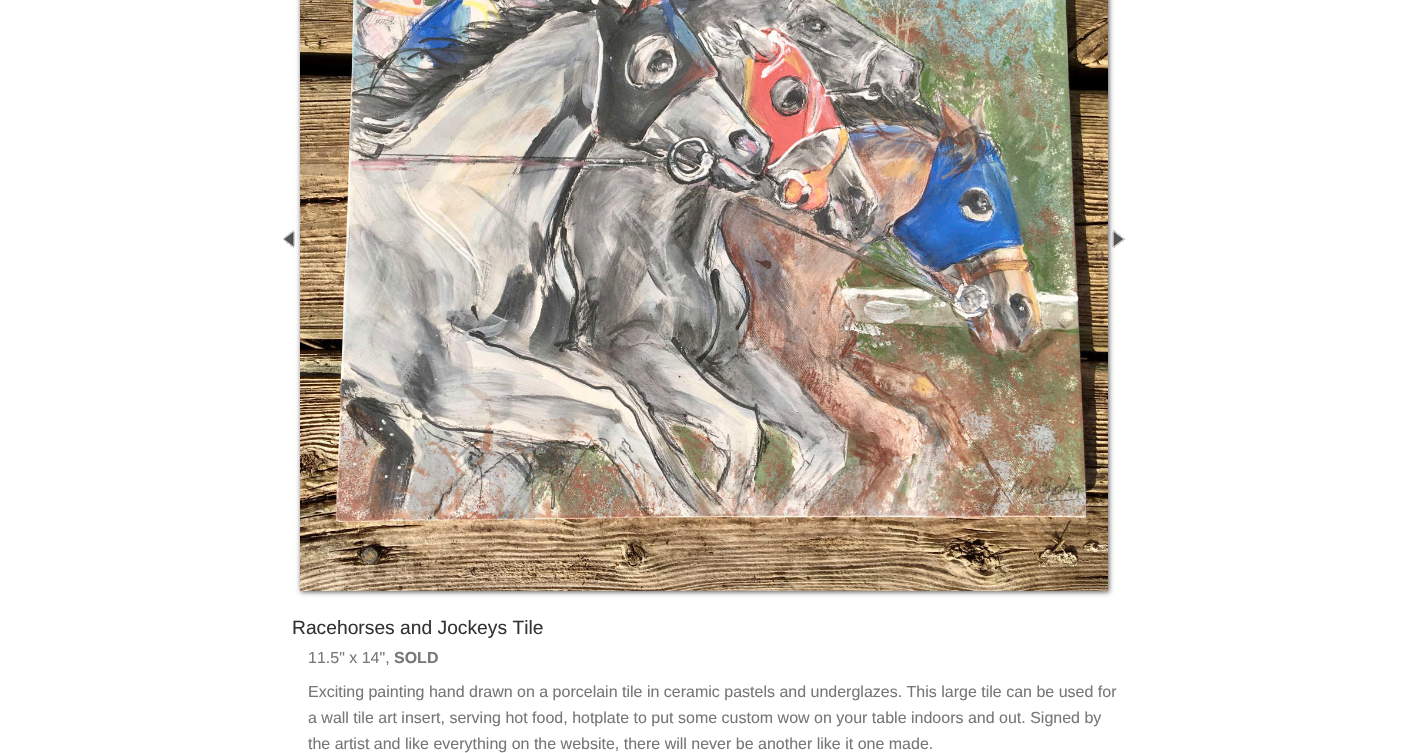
void draw(SkCanvas* canvas) {
  SkPaint paint;
  paint.setAntiAlias(true);
  auto face = [&](const char* family, int weight, float size, bool italic = false) {
    SkFontStyle style(weight, SkFontStyle::kNormal_Width,
      italic ? SkFontStyle::kItalic_Slant : SkFontStyle::kUpright_Slant);
    SkFont result(fontMgr->matchFamilyStyle(family, style), size);
    result.setSubpixel(true);
    return result;
  };
  auto paste = [&](const char* path, float x, float y, float w, float h) {
    auto image = SkImages::DeferredFromEncodedData(SkData::MakeFromFileName(path));
    canvas->drawImageRect(image, SkRect::MakeXYWH(x, y, w, h), SkSamplingOptions());
  };
  canvas->clear(0xffffffff);
  paint.setColor(0xff555555);
  paint.setMaskFilter(SkMaskFilter::MakeBlur(kNormal_SkBlurStyle, 2.5f));
  canvas->drawRect(SkRect::MakeXYWH(301, -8, 808, 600), paint);
  paint.setMaskFilter(nullptr);
  paste("img/1.png", 283, 230, 12, 18);
  paste("img/2.png", 300, 0, 808, 591);
  paste("img/3.png", 1112, 230, 13, 18);
  auto f0 = face("Liberation Sans", 400, 19.25f);
  paint.setColor(0xff333333);
  canvas->drawString("Racehorses and Jockeys Tile", 292, 634, f0, paint);
  auto f1 = face("Liberation Sans", 400, 16);
  paint.setColor(0xff777777);
  canvas->drawString("11.5\" x 14\",", 308, 663, f1, paint);
  auto f2 = face("Liberation Sans", 700, 16);
  canvas->drawString("SOLD", 394, 663, f2, paint);
  {
    const struct { const char* s; float x, y; } items[] = {
      {"Exciting painting hand drawn on a porcelain tile in ceramic pastels and underglazes. This large tile can be used for", 308, 697},
      {"a wall tile art insert, serving hot food, hotplate to put some custom wow on your table indoors and out. Signed by", 308, 723},
      {"the artist and like everything on the website, there will never be another like it one made.", 308, 749},
    };
    for (auto [s, x, y] : items) {
      canvas->drawString(s, x, y, f1, paint);
    }
  }
}
